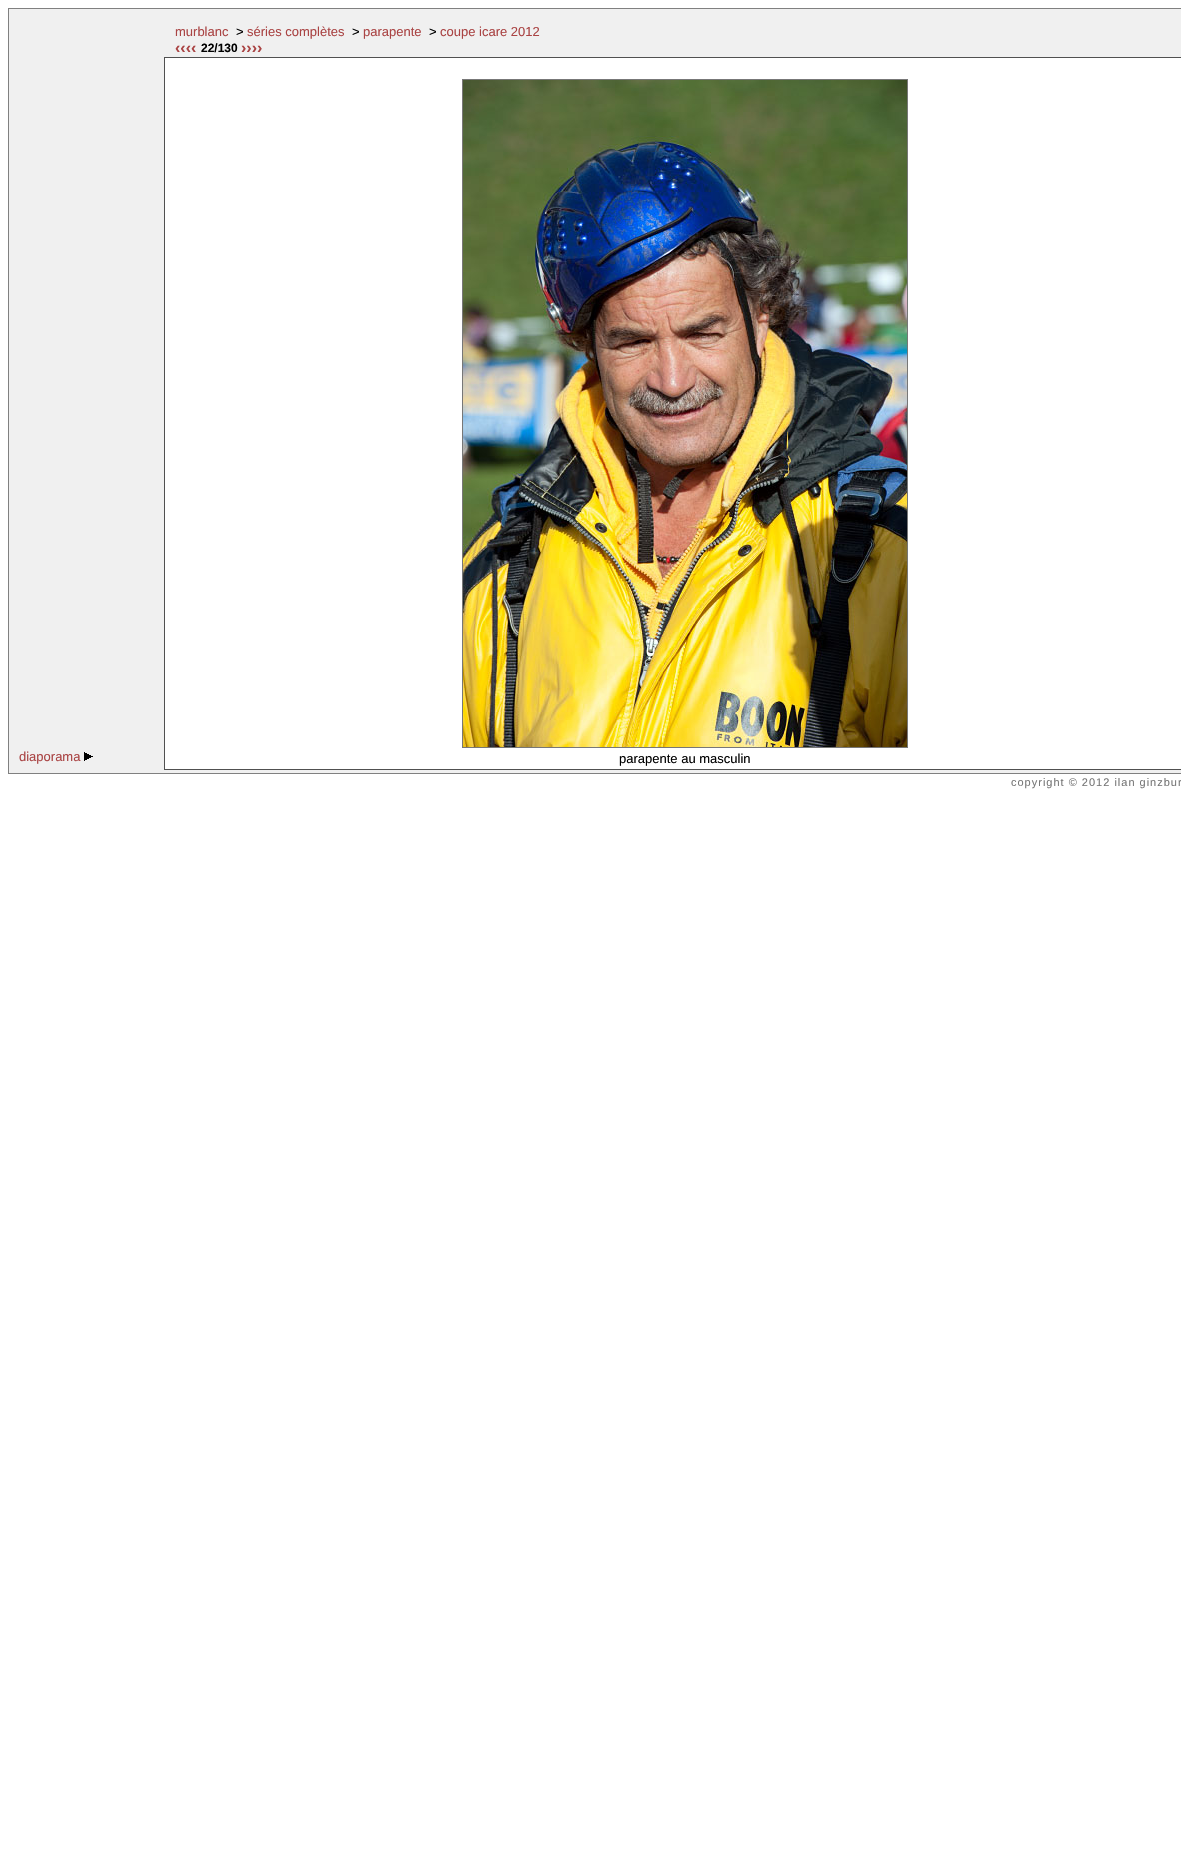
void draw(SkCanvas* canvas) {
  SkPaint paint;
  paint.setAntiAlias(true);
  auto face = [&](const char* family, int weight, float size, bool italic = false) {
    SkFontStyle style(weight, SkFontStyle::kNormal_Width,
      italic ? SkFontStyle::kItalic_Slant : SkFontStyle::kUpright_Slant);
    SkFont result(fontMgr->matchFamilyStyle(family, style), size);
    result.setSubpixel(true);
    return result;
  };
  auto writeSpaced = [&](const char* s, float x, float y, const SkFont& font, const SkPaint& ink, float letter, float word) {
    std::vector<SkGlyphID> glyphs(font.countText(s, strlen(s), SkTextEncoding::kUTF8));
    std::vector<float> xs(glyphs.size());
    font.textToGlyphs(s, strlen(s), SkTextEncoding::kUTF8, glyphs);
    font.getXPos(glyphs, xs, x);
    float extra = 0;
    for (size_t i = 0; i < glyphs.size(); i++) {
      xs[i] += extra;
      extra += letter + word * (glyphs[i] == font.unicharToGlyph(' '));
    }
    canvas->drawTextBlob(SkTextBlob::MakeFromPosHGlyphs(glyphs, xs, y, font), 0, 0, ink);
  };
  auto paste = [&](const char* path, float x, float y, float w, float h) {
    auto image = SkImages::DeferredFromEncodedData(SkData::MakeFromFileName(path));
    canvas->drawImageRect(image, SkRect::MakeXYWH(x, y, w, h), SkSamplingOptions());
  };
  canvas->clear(0xffffffff);
  {
    const struct { float x, y, w, h; SkColor color; } items[] = {
      {9, 9, 1172, 764, 0xfff0f0f0},
      {8, 8, 1173, 1, 0xff808080},
      {8, 773, 1173, 1, 0xff808080},
      {8, 8, 1, 766, 0xff808080},
    };
    for (auto [x, y, w, h, color] : items) {
      paint.setColor(color);
      canvas->drawRect(SkRect::MakeXYWH(x, y, w, h), paint);
    }
  }
  paint.setColor(0xffffffff);
  canvas->drawRect(SkRect::MakeXYWH(164.5f, 57.5f, 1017, 712), paint);
  paint.setStroke(true);
  paint.setStrokeWidth(1);
  paint.setColor(0xff505050);
  canvas->drawRect(SkRect::MakeXYWH(164.5f, 57.5f, 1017, 712), paint);
  paint.setColor(0xff777777);
  canvas->drawRect(SkRect::MakeXYWH(462.5f, 79.5f, 445, 668), paint);
  paste("img/1.png", 463, 80, 444, 667);
  paste("img/2.png", 84, 752, 9, 9);
  auto f0 = face("Liberation Sans", 400, 13);
  paint.setStroke(false);
  paint.setColor(0xffaa4444);
  canvas->drawString("murblanc", 175, 36, f0, paint);
  paint.setColor(0xff000000);
  canvas->drawString(">", 236, 36, f0, paint);
  paint.setColor(0xffaa4444);
  canvas->drawString("séries complètes", 247, 36, f0, paint);
  paint.setColor(0xff000000);
  canvas->drawString(">", 352, 36, f0, paint);
  paint.setColor(0xffaa4444);
  canvas->drawString("parapente", 363, 36, f0, paint);
  paint.setColor(0xff000000);
  canvas->drawString(">", 429, 36, f0, paint);
  paint.setColor(0xffaa4444);
  canvas->drawString("coupe icare 2012", 440, 36, f0, paint);
  auto f1 = face("Liberation Sans", 700, 16);
  canvas->drawString("‹‹‹‹", 175, 53, f1, paint);
  auto f2 = face("Liberation Sans", 700, 12);
  paint.setColor(0xff000000);
  canvas->drawString("22/130", 201, 52, f2, paint);
  paint.setColor(0xffaa4444);
  canvas->drawString("››››", 241, 53, f1, paint);
  paint.setColor(0xff000000);
  canvas->drawString("parapente au masculin", 619, 763, f0, paint);
  paint.setColor(0xffaa4444);
  canvas->drawString("diaporama", 19, 761, f0, paint);
  auto f3 = face("Liberation Sans", 400, 11);
  paint.setColor(0xff777777);
  writeSpaced("copyright © 2012 ilan ginzbur", 1011, 786, f3, paint, 1, 0);
}
